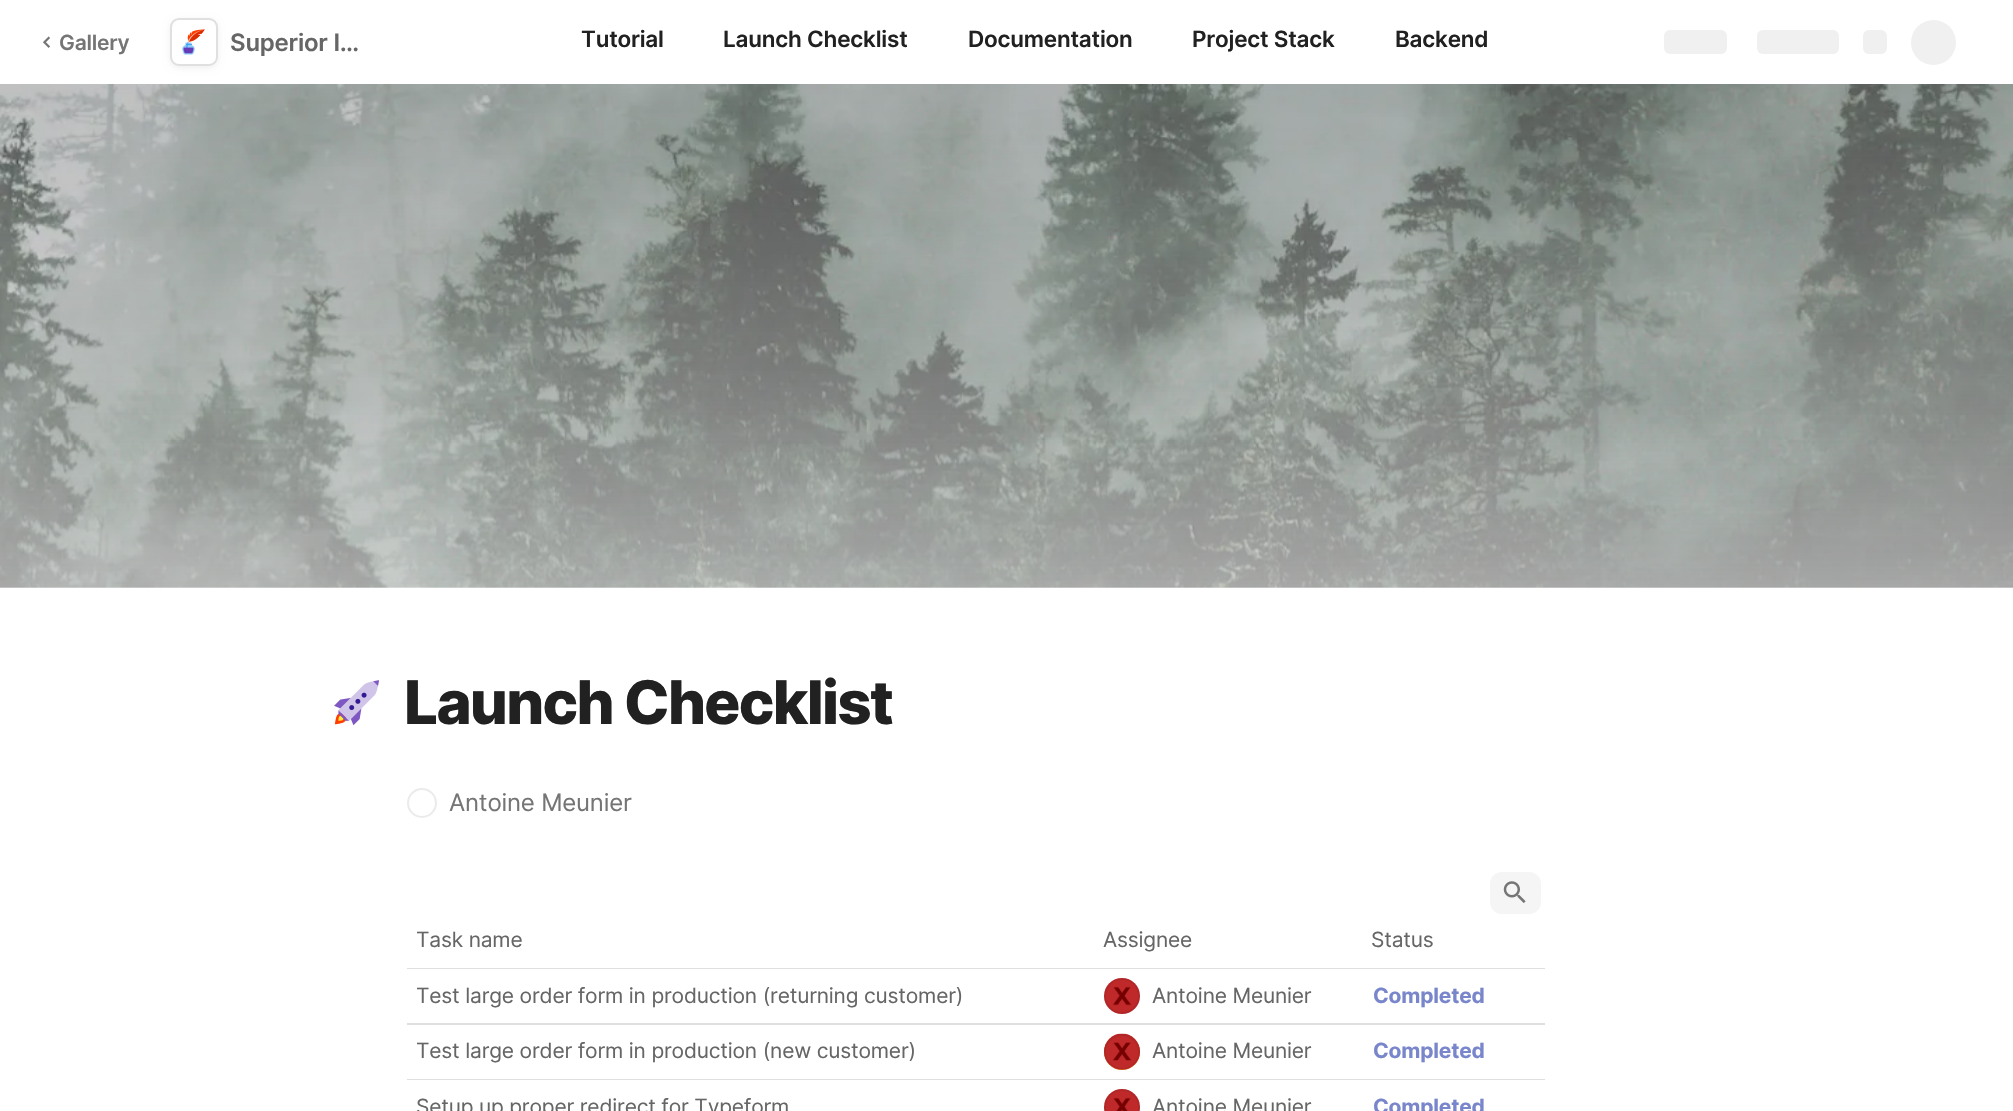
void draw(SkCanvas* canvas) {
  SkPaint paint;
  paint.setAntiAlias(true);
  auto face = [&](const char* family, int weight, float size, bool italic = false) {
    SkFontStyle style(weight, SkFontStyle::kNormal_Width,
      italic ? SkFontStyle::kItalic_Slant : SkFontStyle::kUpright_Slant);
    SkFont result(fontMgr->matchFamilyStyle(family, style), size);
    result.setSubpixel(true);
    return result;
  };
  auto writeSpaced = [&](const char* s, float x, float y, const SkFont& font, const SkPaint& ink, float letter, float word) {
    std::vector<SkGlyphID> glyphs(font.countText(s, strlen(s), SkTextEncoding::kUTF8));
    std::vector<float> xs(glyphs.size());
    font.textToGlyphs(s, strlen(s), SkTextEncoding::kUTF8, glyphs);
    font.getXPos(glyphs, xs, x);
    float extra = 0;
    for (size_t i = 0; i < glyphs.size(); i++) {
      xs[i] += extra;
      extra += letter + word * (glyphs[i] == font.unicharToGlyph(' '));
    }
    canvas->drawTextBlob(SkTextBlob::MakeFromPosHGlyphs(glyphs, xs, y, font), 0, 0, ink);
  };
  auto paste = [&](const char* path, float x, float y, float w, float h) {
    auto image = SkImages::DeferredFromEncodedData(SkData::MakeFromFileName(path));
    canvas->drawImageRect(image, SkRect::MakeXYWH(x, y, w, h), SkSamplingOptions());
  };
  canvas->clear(0xffffffff);
  paste("img/1.png", 43, 36, 7, 12);
  paint.setColor(0x0f000000);
  paint.setMaskFilter(SkMaskFilter::MakeBlur(kNormal_SkBlurStyle, 3));
  canvas->drawRoundRect(SkRect::MakeXYWH(170, 20, 48, 48), 9, 9, paint);
  paint.setMaskFilter(nullptr);
  paint.setColor(0xffffffff);
  canvas->drawRoundRect(SkRect::MakeXYWH(171, 19, 46, 46), 8, 8, paint);
  paint.setStroke(true);
  paint.setStrokeWidth(2);
  paint.setColor(0xffe0e0e0);
  canvas->drawRoundRect(SkRect::MakeXYWH(171, 19, 46, 46), 8, 8, paint);
  paste("img/2.png", 182, 29, 23, 26);
  paint.setStroke(false);
  paint.setColor(0xfff0f0f0);
  canvas->drawRoundRect(SkRect::MakeXYWH(1664, 30, 63, 24), 6, 6, paint);
  canvas->drawRoundRect(SkRect::MakeXYWH(1757, 30, 82, 24), 6, 6, paint);
  canvas->drawRoundRect(SkRect::MakeXYWH(1863, 30, 24, 24), 6, 6, paint);
  canvas->drawCircle(1933.5f, 42.5f, 22.5f, paint);
  paste("img/3.png", 0, 84, 2013, 504);
  paste("img/4.png", 334, 680, 46, 46);
  paint.setStroke(true);
  paint.setColor(0xffebebeb);
  canvas->drawCircle(422, 803, 14, paint);
  paint.setStroke(false);
  paint.setColor(0xfff5f5f5);
  canvas->drawRoundRect(SkRect::MakeXYWH(1490, 872, 51, 42), 12, 12, paint);
  paste("img/5.png", 1503, 881, 23, 22);
  paint.setColor(0xffe0e0e0);
  canvas->drawRect(SkRect::MakeXYWH(407, 968, 1138, 1), paint);
  canvas->drawRect(SkRect::MakeXYWH(407, 1023, 1138, 2), paint);
  paste("img/6.png", 1104, 978, 36, 36);
  paint.setStroke(true);
  paint.setColor(0x14000000);
  canvas->drawCircle(1122, 996, 17, paint);
  paint.setStroke(false);
  paint.setColor(0xffe0e0e0);
  canvas->drawRect(SkRect::MakeXYWH(407, 1079, 1138, 1), paint);
  paint.setColor(0xffec6515);
  canvas->drawCircle(1122, 1052, 18, paint);
  paste("img/7.png", 1104, 1033, 36, 37);
  paint.setStroke(true);
  paint.setColor(0x14000000);
  canvas->drawCircle(1122, 1052, 17, paint);
  paste("img/8.png", 1104, 1089, 36, 22);
  canvas->drawCircle(1122, 1107, 17, paint);
  auto f0 = face("Inter", 600, 21);
  paint.setStroke(false);
  paint.setColor(0xff757575);
  writeSpaced("Gallery", 59, 50, f0, paint, -0.2f, 0);
  auto f1 = face("Inter", 600, 24);
  paint.setColor(0xff666666);
  writeSpaced("Superior I…", 230, 51, f1, paint, -0.2f, 0);
  auto f2 = face("Inter", 600, 22.5f);
  paint.setColor(0xff212121);
  {
    const struct { const char* s; float x, y; } items[] = {
      {"Tutorial", 581, 47},
      {"Launch Checklist", 723, 47},
      {"Documentation", 968, 47},
      {"Project Stack", 1192, 47},
      {"Backend", 1395, 47},
    };
    for (auto [s, x, y] : items) {
      writeSpaced(s, x, y, f2, paint, -0.2f, 0);
    }
  }
  auto f3 = face("Inter", 800, 60);
  writeSpaced("Launch Checklist", 404, 724, f3, paint, -1.75f, 0);
  auto f4 = face("Inter", 400, 24);
  paint.setColor(0xff757575);
  writeSpaced("Antoine Meunier", 449, 811, f4, paint, -0.2f, 0);
  auto f5 = face("Inter", 400, 21);
  paint.setColor(0xff666666);
  {
    const struct { const char* s; float x, y; } items[] = {
      {"Task name", 416, 947},
      {"Assignee", 1103, 947},
      {"Status", 1371, 947},
      {"Test large order form in production (returning customer)", 416, 1003},
      {"Antoine Meunier", 1152, 1003},
    };
    for (auto [s, x, y] : items) {
      writeSpaced(s, x, y, f5, paint, -0.2f, 0);
    }
  }
  auto f6 = face("Inter", 700, 21);
  paint.setColor(0xff7986cb);
  writeSpaced("Completed", 1373, 1003, f6, paint, -0.2f, 0);
  paint.setColor(0xff666666);
  writeSpaced("Test large order form in production (new customer)", 416, 1058, f5, paint, -0.2f, 0);
  writeSpaced("Antoine Meunier", 1152, 1058, f5, paint, -0.2f, 0);
  paint.setColor(0xff7986cb);
  writeSpaced("Completed", 1373, 1058, f6, paint, -0.2f, 0);
  paint.setColor(0xff666666);
  writeSpaced("Setup up proper redirect for Typeform", 416, 1114, f5, paint, -0.2f, 0);
  writeSpaced("Antoine Meunier", 1152, 1114, f5, paint, -0.2f, 0);
  paint.setColor(0xff7986cb);
  writeSpaced("Completed", 1373, 1114, f6, paint, -0.2f, 0);
}
